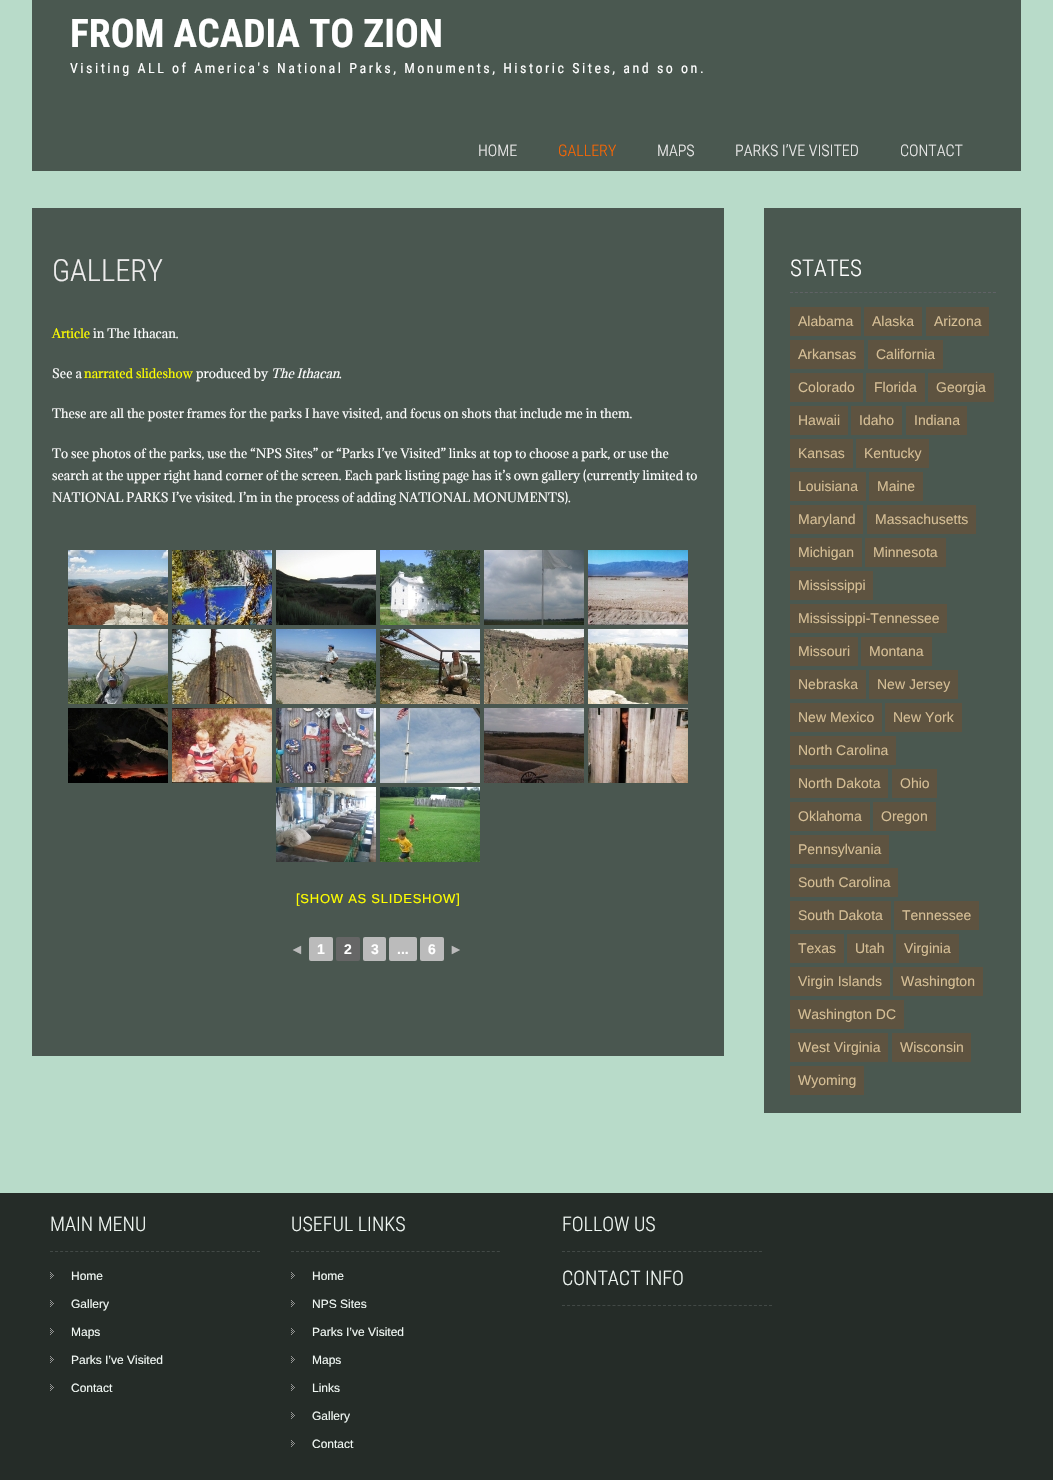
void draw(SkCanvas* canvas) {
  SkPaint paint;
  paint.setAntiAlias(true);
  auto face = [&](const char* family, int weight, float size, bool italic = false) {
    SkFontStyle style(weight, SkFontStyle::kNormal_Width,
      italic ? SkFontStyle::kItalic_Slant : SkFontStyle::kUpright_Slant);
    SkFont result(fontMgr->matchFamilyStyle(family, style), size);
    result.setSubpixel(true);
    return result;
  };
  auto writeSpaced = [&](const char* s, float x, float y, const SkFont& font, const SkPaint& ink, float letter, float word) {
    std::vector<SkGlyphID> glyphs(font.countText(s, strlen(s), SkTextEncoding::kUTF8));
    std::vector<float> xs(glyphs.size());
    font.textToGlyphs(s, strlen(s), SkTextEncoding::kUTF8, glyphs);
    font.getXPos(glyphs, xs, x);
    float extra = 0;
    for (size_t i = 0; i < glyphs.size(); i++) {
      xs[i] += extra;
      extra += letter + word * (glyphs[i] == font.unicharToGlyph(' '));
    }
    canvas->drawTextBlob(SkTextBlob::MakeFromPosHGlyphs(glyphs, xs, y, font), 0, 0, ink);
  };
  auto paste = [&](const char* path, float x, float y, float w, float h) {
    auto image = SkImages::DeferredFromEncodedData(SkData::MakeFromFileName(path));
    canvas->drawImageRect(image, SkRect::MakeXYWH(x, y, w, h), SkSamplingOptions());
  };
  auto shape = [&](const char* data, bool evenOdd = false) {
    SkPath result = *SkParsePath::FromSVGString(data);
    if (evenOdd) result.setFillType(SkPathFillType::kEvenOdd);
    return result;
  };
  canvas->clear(0xffb8dbc9);
  paint.setColor(0xff4a5850);
  canvas->drawRect(SkRect::MakeXYWH(32, 0, 989, 171), paint);
  paint.setColor(0xff4a5750);
  canvas->drawRect(SkRect::MakeXYWH(32, 208, 692, 848), paint);
  paste("img/1.png", 68, 550, 100, 75);
  paste("img/2.png", 172, 550, 100, 75);
  paste("img/3.png", 276, 550, 100, 75);
  paste("img/4.png", 380, 550, 100, 75);
  paste("img/5.png", 484, 550, 100, 75);
  paste("img/6.png", 588, 550, 100, 75);
  paste("img/7.png", 68, 629, 100, 75);
  paste("img/8.png", 172, 629, 100, 75);
  paste("img/9.png", 276, 629, 100, 75);
  paste("img/10.png", 380, 629, 100, 75);
  paste("img/11.png", 484, 629, 100, 75);
  paste("img/12.png", 588, 629, 100, 75);
  paste("img/13.png", 68, 708, 100, 75);
  paste("img/14.png", 172, 708, 100, 75);
  paste("img/15.png", 276, 708, 100, 75);
  paste("img/16.png", 380, 708, 100, 75);
  paste("img/17.png", 484, 708, 100, 75);
  paste("img/18.png", 588, 708, 100, 75);
  paste("img/19.png", 276, 787, 100, 75);
  paste("img/20.png", 380, 787, 100, 75);
  paint.setColor(0xffbbbbbb);
  canvas->drawRoundRect(SkRect::MakeXYWH(309, 937, 24, 24), 2, 2, paint);
  paint.setColor(0xff666666);
  canvas->drawRoundRect(SkRect::MakeXYWH(336, 937, 24, 24), 2, 2, paint);
  paint.setColor(0xffbbbbbb);
  canvas->drawRoundRect(SkRect::MakeXYWH(363, 937, 23, 24), 2, 2, paint);
  canvas->drawRoundRect(SkRect::MakeXYWH(389, 937, 28, 24), 2, 2, paint);
  canvas->drawRoundRect(SkRect::MakeXYWH(420, 937, 24, 24), 2, 2, paint);
  paint.setColor(0xff4a5850);
  canvas->drawRect(SkRect::MakeXYWH(764, 208, 257, 905), paint);
  paint.setStroke(true);
  paint.setStrokeWidth(1);
  paint.setColor(0xff606266);
  paint.setPathEffect(SkDashPathEffect::Make({{3, 1.95f}}, 0));
  canvas->drawPath(shape("M790 292.5H996"), paint);
  paint.setPathEffect(nullptr);
  paint.setStroke(false);
  {
    const struct { float x, y, w, h; SkColor color; } items[] = {
      {790, 307, 71, 29, 0xff5e5340},
      {864, 307, 58, 29, 0xff5e5340},
      {926, 307, 63, 29, 0xff5e5340},
      {790, 340, 74, 29, 0xff5e5340},
      {868, 340, 75, 29, 0xff5e5340},
      {790, 373, 73, 29, 0xff5e5340},
      {866, 373, 59, 29, 0xff5e5340},
      {928, 373, 66, 29, 0xff5e5340},
      {790, 406, 58, 29, 0xff5e5340},
      {851, 406, 51, 29, 0xff5e5340},
      {906, 406, 61, 29, 0xff5e5340},
      {790, 439, 63, 29, 0xff5e5340},
      {856, 439, 73, 29, 0xff5e5340},
      {790, 472, 76, 29, 0xff5e5340},
      {869, 472, 54, 29, 0xff5e5340},
      {790, 505, 73, 29, 0xff5e5340},
      {867, 505, 109, 29, 0xff5e5340},
      {790, 538, 72, 29, 0xff5e5340},
      {865, 538, 81, 29, 0xff5e5340},
      {790, 571, 83, 29, 0xff5e5340},
      {790, 604, 157, 29, 0xff5e5340},
      {790, 637, 68, 29, 0xff5e5340},
      {861, 637, 71, 29, 0xff5e5340},
      {790, 670, 76, 29, 0xff5e5340},
      {869, 670, 89, 29, 0xff5e5340},
      {790, 703, 92, 29, 0xff5e5340},
      {885, 703, 77, 29, 0xff5e5340},
      {790, 736, 106, 29, 0xff5e5340},
      {790, 769, 98, 29, 0xff5e5340},
      {892, 769, 45, 29, 0xff5e5340},
      {790, 802, 80, 29, 0xff5e5340},
      {873, 802, 63, 29, 0xff5e5340},
      {790, 835, 99, 29, 0xff5e5340},
      {790, 868, 108, 29, 0xff5e5340},
      {790, 901, 101, 29, 0xff5e5340},
      {894, 901, 85, 29, 0xff5e5340},
      {790, 934, 54, 29, 0xff5e5340},
      {847, 934, 46, 29, 0xff5e5340},
      {896, 934, 63, 29, 0xff5e5340},
      {790, 967, 100, 29, 0xff5e5340},
      {893, 967, 90, 29, 0xff5e5340},
      {790, 1000, 114, 29, 0xff5e5340},
      {790, 1033, 98, 29, 0xff5e5340},
      {892, 1033, 79, 29, 0xff5e5340},
      {790, 1066, 74, 29, 0xff5e5340},
      {0, 1193, 1053, 287, 0xff252c28},
    };
    for (auto [x, y, w, h, color] : items) {
      paint.setColor(color);
      canvas->drawRect(SkRect::MakeXYWH(x, y, w, h), paint);
    }
  }
  paint.setStroke(true);
  paint.setColor(0xff424946);
  paint.setPathEffect(SkDashPathEffect::Make({{3, 2.05f}}, 0));
  canvas->drawPath(shape("M50 1251.5H260"), paint);
  paint.setPathEffect(nullptr);
  paste("img/21.png", 50, 1272, 4, 7);
  paste("img/21.png", 50, 1300, 4, 7);
  paste("img/21.png", 50, 1328, 4, 7);
  paste("img/21.png", 50, 1356, 4, 7);
  paste("img/21.png", 50, 1384, 4, 7);
  paint.setPathEffect(SkDashPathEffect::Make({{3, 2.02f}}, 0));
  canvas->drawPath(shape("M291 1251.5H500"), paint);
  paint.setPathEffect(nullptr);
  paste("img/21.png", 291, 1272, 4, 7);
  paste("img/21.png", 291, 1300, 4, 7);
  paste("img/21.png", 291, 1328, 4, 7);
  paste("img/21.png", 291, 1356, 4, 7);
  paste("img/21.png", 291, 1384, 4, 7);
  paste("img/21.png", 291, 1412, 4, 7);
  paste("img/21.png", 291, 1440, 4, 7);
  paint.setPathEffect(SkDashPathEffect::Make({{3, 2.05f}}, 0));
  canvas->drawPath(shape("M562 1251.5H762"), paint);
  paint.setPathEffect(nullptr);
  paint.setPathEffect(SkDashPathEffect::Make({{3, 2.05f}}, 0));
  canvas->drawPath(shape("M562 1305.5H772"), paint);
  paint.setPathEffect(nullptr);
  auto f0 = face("Roboto Condensed", 700, 39.5f);
  paint.setStroke(false);
  paint.setColor(0xffffffff);
  canvas->drawString("FROM ACADIA TO ZION", 70, 47, f0, paint);
  auto f1 = face("Roboto Condensed", 400, 14);
  writeSpaced("Visiting ALL of America's National Parks, Monuments, Historic Sites, and so on.", 70, 73, f1, paint, 2.5f, 0);
  auto f2 = face("Roboto Condensed", 300, 16);
  paint.setColor(0xffeeeded);
  canvas->drawString("HOME", 478, 156, f2, paint);
  paint.setColor(0xffff6600);
  canvas->drawString("GALLERY", 558, 156, f2, paint);
  paint.setColor(0xffeeeded);
  {
    const struct { const char* s; float x, y; } items[] = {
      {"MAPS", 657, 156},
      {"PARKS I’VE VISITED", 735, 156},
      {"CONTACT", 900, 156},
    };
    for (auto [s, x, y] : items) {
      canvas->drawString(s, x, y, f2, paint);
    }
  }
  auto f3 = face("Roboto Condensed", 300, 30.5f);
  canvas->drawString("GALLERY", 52, 281, f3, paint);
  auto f4 = face("Adamina", 400, 12);
  paint.setColor(0xffffff00);
  canvas->drawString("Article", 52, 338, f4, paint);
  paint.setColor(0xffffffff);
  canvas->drawString("in The Ithacan.", 93, 338, f4, paint);
  canvas->drawString("See a", 52, 378, f4, paint);
  paint.setColor(0xffffff00);
  canvas->drawString("narrated slideshow", 84, 378, f4, paint);
  paint.setColor(0xffffffff);
  canvas->drawString("produced by", 196, 378, f4, paint);
  auto f5 = face("Adamina", 400, 12, true);
  canvas->drawString("The Ithacan", 271, 378, f5, paint);
  {
    const struct { const char* s; float x, y; } items[] = {
      {".", 339, 378},
      {"These are all the poster frames for the parks I have visited, and focus on shots that include me in them.", 52, 418},
      {"To see photos of the parks, use the “NPS Sites” or “Parks I’ve Visited” links at top to choose a park, or use the", 52, 458},
      {"search at the upper right hand corner of the screen. Each park listing page has it’s own gallery (currently limited to", 52, 480},
      {"NATIONAL PARKS I’ve visited. I’m in the process of adding NATIONAL MONUMENTS).", 52, 502},
    };
    for (auto [s, x, y] : items) {
      canvas->drawString(s, x, y, f4, paint);
    }
  }
  auto f6 = face("Liberation Sans", 400, 13);
  paint.setColor(0xffffff00);
  writeSpaced("[SHOW AS SLIDESHOW]", 296, 903, f6, paint, 0.75f, 0);
  auto f7 = face("Liberation Sans", 700, 14);
  paint.setColor(0xffbbbbbb);
  canvas->drawString("◄", 290, 954, f7, paint);
  paint.setColor(0xffffffff);
  {
    const struct { const char* s; float x, y; } items[] = {
      {"1", 317, 954},
      {"2", 344, 954},
      {"3", 371, 954},
      {"...", 397, 954},
      {"6", 428, 954},
    };
    for (auto [s, x, y] : items) {
      canvas->drawString(s, x, y, f7, paint);
    }
  }
  paint.setColor(0xffbbbbbb);
  canvas->drawString("►", 449, 954, f7, paint);
  auto f8 = face("Roboto Condensed", 300, 23);
  paint.setColor(0xffffffff);
  canvas->drawString("STATES", 790, 276, f8, paint);
  auto f9 = face("Liberation Sans", 400, 14);
  paint.setColor(0xffd5be95);
  {
    const struct { const char* s; float x, y; } items[] = {
      {"Alabama", 798, 326},
      {"Alaska", 872, 326},
      {"Arizona", 934, 326},
      {"Arkansas", 798, 359},
      {"California", 876, 359},
      {"Colorado", 798, 392},
      {"Florida", 874, 392},
      {"Georgia", 936, 392},
      {"Hawaii", 798, 425},
      {"Idaho", 859, 425},
      {"Indiana", 914, 425},
      {"Kansas", 798, 458},
      {"Kentucky", 864, 458},
      {"Louisiana", 798, 491},
      {"Maine", 877, 491},
      {"Maryland", 798, 524},
      {"Massachusetts", 875, 524},
      {"Michigan", 798, 557},
      {"Minnesota", 873, 557},
      {"Mississippi", 798, 590},
      {"Mississippi-Tennessee", 798, 623},
      {"Missouri", 798, 656},
      {"Montana", 869, 656},
      {"Nebraska", 798, 689},
      {"New Jersey", 877, 689},
      {"New Mexico", 798, 722},
      {"New York", 893, 722},
      {"North Carolina", 798, 755},
      {"North Dakota", 798, 788},
      {"Ohio", 900, 788},
      {"Oklahoma", 798, 821},
      {"Oregon", 881, 821},
      {"Pennsylvania", 798, 854},
      {"South Carolina", 798, 887},
      {"South Dakota", 798, 920},
      {"Tennessee", 902, 920},
      {"Texas", 798, 953},
      {"Utah", 855, 953},
      {"Virginia", 904, 953},
      {"Virgin Islands", 798, 986},
      {"Washington", 901, 986},
      {"Washington DC", 798, 1019},
      {"West Virginia", 798, 1052},
      {"Wisconsin", 900, 1052},
      {"Wyoming", 798, 1085},
    };
    for (auto [s, x, y] : items) {
      canvas->drawString(s, x, y, f9, paint);
    }
  }
  auto f10 = face("Roboto Condensed", 300, 20);
  paint.setColor(0xfff1f8f4);
  canvas->drawString("MAIN MENU", 50, 1231, f10, paint);
  auto f11 = face("Liberation Sans", 400, 12);
  {
    const struct { const char* s; float x, y; } items[] = {
      {"Home", 71, 1280},
      {"Gallery", 71, 1308},
      {"Maps", 71, 1336},
      {"Parks I’ve Visited", 71, 1364},
      {"Contact", 71, 1392},
    };
    for (auto [s, x, y] : items) {
      canvas->drawString(s, x, y, f11, paint);
    }
  }
  canvas->drawString("USEFUL LINKS", 291, 1231, f10, paint);
  {
    const struct { const char* s; float x, y; } items[] = {
      {"Home", 312, 1280},
      {"NPS Sites", 312, 1308},
      {"Parks I’ve Visited", 312, 1336},
      {"Maps", 312, 1364},
      {"Links", 312, 1392},
      {"Gallery", 312, 1420},
      {"Contact", 312, 1448},
    };
    for (auto [s, x, y] : items) {
      canvas->drawString(s, x, y, f11, paint);
    }
  }
  canvas->drawString("FOLLOW US", 562, 1231, f10, paint);
  canvas->drawString("CONTACT INFO", 562, 1285, f10, paint);
}
